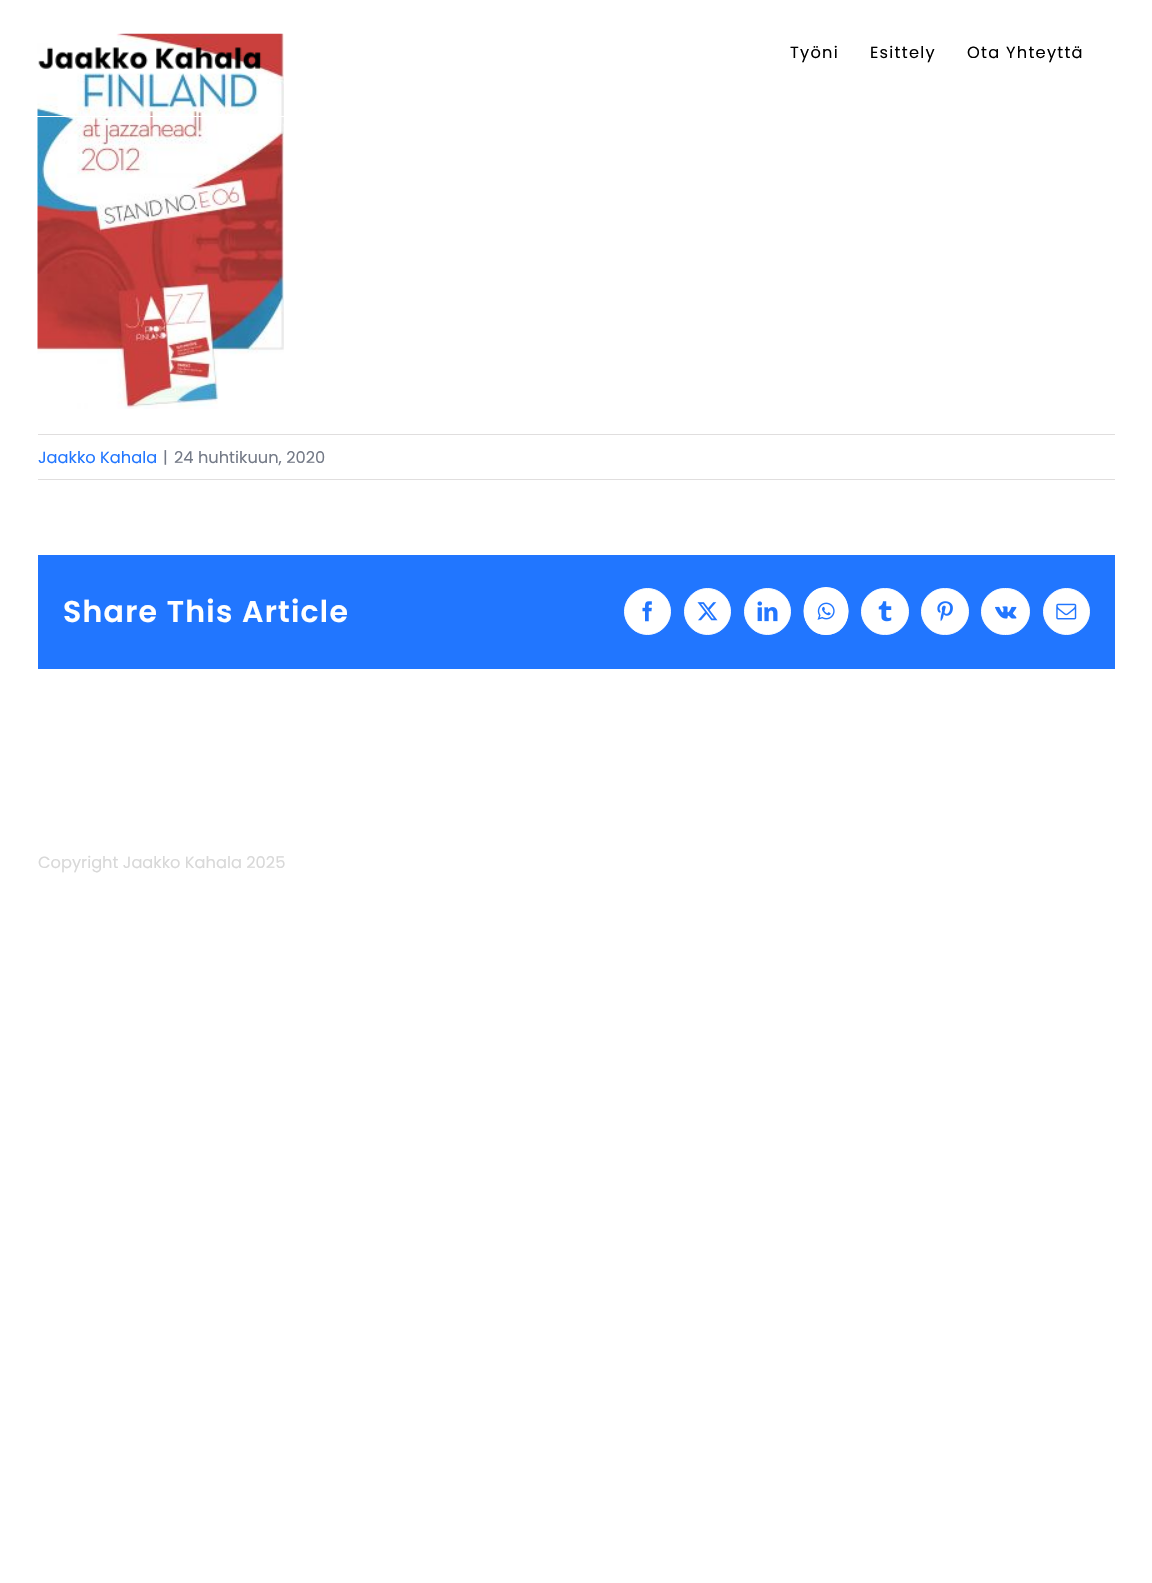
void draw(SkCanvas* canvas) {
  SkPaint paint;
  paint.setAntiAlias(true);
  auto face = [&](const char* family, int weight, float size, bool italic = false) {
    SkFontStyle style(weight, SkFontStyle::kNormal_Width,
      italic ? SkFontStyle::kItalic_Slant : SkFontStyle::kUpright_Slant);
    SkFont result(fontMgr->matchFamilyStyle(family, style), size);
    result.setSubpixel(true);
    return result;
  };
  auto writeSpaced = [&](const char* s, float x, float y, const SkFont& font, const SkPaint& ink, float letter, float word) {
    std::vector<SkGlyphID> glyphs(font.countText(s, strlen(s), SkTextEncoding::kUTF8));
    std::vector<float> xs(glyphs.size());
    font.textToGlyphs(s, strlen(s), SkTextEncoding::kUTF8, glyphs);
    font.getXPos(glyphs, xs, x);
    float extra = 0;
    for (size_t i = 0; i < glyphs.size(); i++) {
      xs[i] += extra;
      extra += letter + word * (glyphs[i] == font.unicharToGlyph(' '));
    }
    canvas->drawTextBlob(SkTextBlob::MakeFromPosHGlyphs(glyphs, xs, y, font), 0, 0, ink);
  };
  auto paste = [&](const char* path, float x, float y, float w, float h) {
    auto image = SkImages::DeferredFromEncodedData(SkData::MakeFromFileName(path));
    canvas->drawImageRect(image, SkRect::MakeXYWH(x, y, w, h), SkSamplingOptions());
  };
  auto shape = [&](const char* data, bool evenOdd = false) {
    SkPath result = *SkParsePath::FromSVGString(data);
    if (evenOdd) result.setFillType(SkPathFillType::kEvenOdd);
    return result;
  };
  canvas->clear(0xffffffff);
  paste("img/2.png", 37, 33, 247, 376);
  paint.setColor(0xffffffff);
  canvas->drawRect(SkRect::MakeXYWH(37, 116, 247, 1), paint);
  paste("img/1.png", 38, 47, 224, 22);
  {
    const struct { float x, y, w, h; SkColor color; } items[] = {
      {38, 434, 1077, 1, 0xffe0dede},
      {38, 479, 1077, 1, 0xffe0dede},
      {38, 555, 1077, 114, 0xff2176ff},
    };
    for (auto [x, y, w, h, color] : items) {
      paint.setColor(color);
      canvas->drawRect(SkRect::MakeXYWH(x, y, w, h), paint);
    }
  }
  paint.setColor(0xffffffff);
  canvas->drawCircle(647.5f, 611.5f, 23, paint);
  paint.setStroke(true);
  paint.setStrokeWidth(1);
  canvas->drawCircle(647.5f, 611.5f, 23, paint);
  paste("img/3.png", 642, 601, 10, 21);
  paint.setStroke(false);
  canvas->drawCircle(707.5f, 611.5f, 23, paint);
  paint.setStroke(true);
  canvas->drawCircle(707.5f, 611.5f, 23, paint);
  paste("img/4.png", 697, 602, 21, 19);
  paint.setStroke(false);
  canvas->drawCircle(767.5f, 611.5f, 23, paint);
  paint.setStroke(true);
  canvas->drawCircle(767.5f, 611.5f, 23, paint);
  paste("img/5.png", 757, 601, 21, 21);
  paint.setStroke(false);
  canvas->drawOval(SkRect::MakeXYWH(803.5f, 587, 45, 48), paint);
  paint.setStroke(true);
  paint.setStrokeWidth(1.2f);
  canvas->drawPath(shape("M826 588C855 588 855 634.5 826 634.5C797.5 634.5 797.5 588 826 588Z"), paint);
  paste("img/6.png", 817, 602, 18, 18);
  paint.setStroke(false);
  canvas->drawRoundRect(SkRect::MakeXYWH(861.5f, 588.5f, 47, 46), 23, 23, paint);
  paint.setStroke(true);
  paint.setStrokeWidth(1);
  canvas->drawRoundRect(SkRect::MakeXYWH(861.5f, 588.5f, 47, 46), 23, 23, paint);
  paste("img/7.png", 878, 601, 14, 21);
  paint.setStroke(false);
  canvas->drawRoundRect(SkRect::MakeXYWH(921.5f, 588.5f, 47, 46), 23, 23, paint);
  paint.setStroke(true);
  canvas->drawRoundRect(SkRect::MakeXYWH(921.5f, 588.5f, 47, 46), 23, 23, paint);
  paste("img/8.png", 937, 601, 16, 21);
  paint.setStroke(false);
  canvas->drawRoundRect(SkRect::MakeXYWH(981.5f, 588.5f, 48, 46), 23, 23, paint);
  paint.setStroke(true);
  canvas->drawRoundRect(SkRect::MakeXYWH(981.5f, 588.5f, 48, 46), 23, 23, paint);
  paste("img/9.png", 995, 606, 22, 13);
  paint.setStroke(false);
  canvas->drawCircle(1066.5f, 611.5f, 23, paint);
  paint.setStroke(true);
  canvas->drawCircle(1066.5f, 611.5f, 23, paint);
  paste("img/10.png", 1056, 603, 21, 17);
  auto f0 = face("Poppins", 400, 16.25f);
  paint.setStroke(false);
  paint.setColor(0xff000000);
  {
    const struct { const char* s; float x, y; } items[] = {
      {"Työni", 790, 58},
      {"Esittely", 870, 58},
      {"Ota Yhteyttä", 967, 58},
    };
    for (auto [s, x, y] : items) {
      writeSpaced(s, x, y, f0, paint, 1.25f, 0);
    }
  }
  paint.setColor(0xff2176ff);
  canvas->drawString("Jaakko Kahala", 38, 463, f0, paint);
  paint.setColor(0xff747a87);
  canvas->drawString("|", 163, 463, f0, paint);
  canvas->drawString("24 huhtikuun, 2020", 174, 463, f0, paint);
  auto f1 = face("Poppins", 600, 30);
  paint.setColor(0xffffffff);
  writeSpaced("Share This Article", 63, 622, f1, paint, 1.25f, 0);
  paint.setColor(0xffd8d8d8);
  canvas->drawString("Copyright Jaakko Kahala 2025", 38, 868, f0, paint);
}
